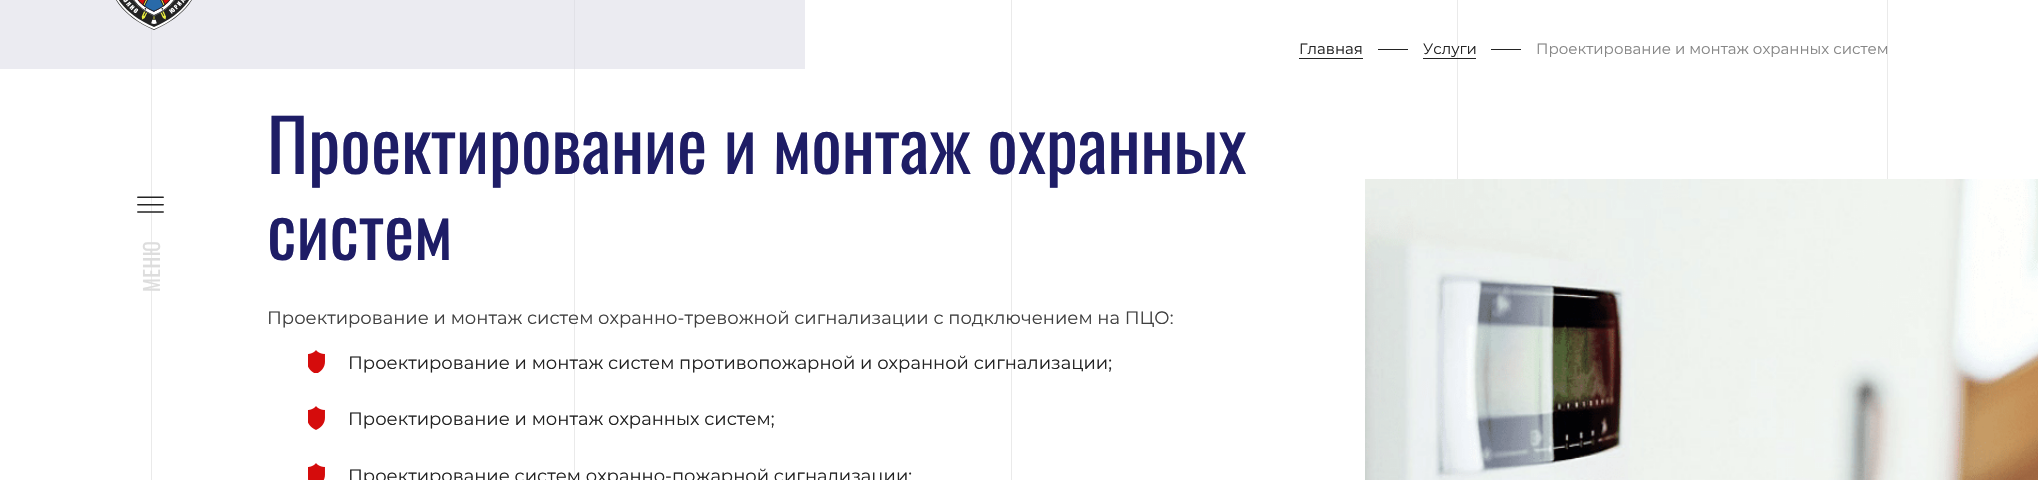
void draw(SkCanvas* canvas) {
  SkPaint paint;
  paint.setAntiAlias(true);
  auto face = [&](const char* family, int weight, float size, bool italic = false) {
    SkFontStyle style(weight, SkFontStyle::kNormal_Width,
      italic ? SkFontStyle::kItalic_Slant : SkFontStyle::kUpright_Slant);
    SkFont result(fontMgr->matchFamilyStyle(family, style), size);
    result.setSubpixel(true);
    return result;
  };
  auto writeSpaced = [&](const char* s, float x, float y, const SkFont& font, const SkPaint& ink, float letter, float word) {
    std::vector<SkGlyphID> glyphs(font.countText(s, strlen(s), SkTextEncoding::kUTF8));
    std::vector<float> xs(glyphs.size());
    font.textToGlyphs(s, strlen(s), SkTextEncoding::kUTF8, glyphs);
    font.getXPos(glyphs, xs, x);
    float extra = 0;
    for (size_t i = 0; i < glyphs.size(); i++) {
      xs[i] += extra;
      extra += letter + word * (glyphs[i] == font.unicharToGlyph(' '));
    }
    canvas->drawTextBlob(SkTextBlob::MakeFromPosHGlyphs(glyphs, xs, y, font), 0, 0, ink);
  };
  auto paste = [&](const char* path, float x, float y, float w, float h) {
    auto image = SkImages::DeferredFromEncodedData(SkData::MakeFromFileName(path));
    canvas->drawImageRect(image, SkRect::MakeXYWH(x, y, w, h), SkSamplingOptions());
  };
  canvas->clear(0xffffffff);
  paint.setColor(0xffebebf1);
  canvas->drawRect(SkRect::MakeXYWH(0, 0, 805, 69), paint);
  paint.setColor(0xffe1e1e7);
  canvas->drawRect(SkRect::MakeXYWH(151, 28, 1, 41), paint);
  paste("img/1.png", 116, 0, 76, 30);
  {
    const struct { float x, y, w, h; SkColor color; } items[] = {
      {151, 69, 1, 411, 0xffeaeaea},
      {574, 69, 1, 411, 0xffeaeaea},
      {1299, 58, 64, 1, 0xff232323},
      {1378, 49, 30, 1, 0xff232323},
      {1457, 0, 1, 179, 0xffeaeaea},
      {1423, 58, 53, 1, 0xff232323},
      {1491, 49, 30, 1, 0xff232323},
      {574, 0, 1, 69, 0xffe1e1e7},
      {1011, 0, 1, 480, 0xffeaeaea},
      {1887, 0, 1, 179, 0xffeaeaea},
    };
    for (auto [x, y, w, h, color] : items) {
      paint.setColor(color);
      canvas->drawRect(SkRect::MakeXYWH(x, y, w, h), paint);
    }
  }
  paste("img/2.png", 137, 196, 27, 17);
  paste("img/3.png", 1365, 179, 673, 301);
  paste("img/4.png", 308, 350, 17, 23);
  paste("img/5.png", 308, 406, 17, 24);
  paste("img/6.png", 308, 463, 17, 17);
  auto f0 = face("Montserrat", 400, 15);
  paint.setColor(0xff232323);
  canvas->drawString("Главная", 1299, 54, f0, paint);
  canvas->drawString("Услуги", 1423, 54, f0, paint);
  paint.setColor(0xff868686);
  canvas->drawString("Проектирование и монтаж охранных систем", 1536, 54, f0, paint);
  auto f1 = face("Oswald", 400, 21);
  paint.setColor(0xffdddddd);
  canvas->save();
  canvas->rotate(-90, 160, 292);
  writeSpaced("МЕНЮ", 160, 292, f1, paint, 0.5f, 0);
  canvas->restore();
  auto f2 = face("Oswald", 400, 72);
  paint.setColor(0xff1e1d66);
  canvas->drawString("Проектирование и монтаж охранных", 267, 174, f2, paint);
  canvas->drawString("систем", 267, 260, f2, paint);
  auto f3 = face("Montserrat", 400, 17.98f);
  paint.setColor(0xff404040);
  canvas->drawString("Проектирование и монтаж систем охранно-тревожной сигнализации с подключением на ПЦО:", 267, 324, f3, paint);
  paint.setColor(0xff232323);
  {
    const struct { const char* s; float x, y; } items[] = {
      {"Проектирование и монтаж систем противопожарной и охранной сигнализации;", 348, 369},
      {"Проектирование и монтаж охранных систем;", 348, 425},
      {"Проектирование систем охранно-пожарной сигнализации;", 348, 482},
    };
    for (auto [s, x, y] : items) {
      canvas->drawString(s, x, y, f3, paint);
    }
  }
}
